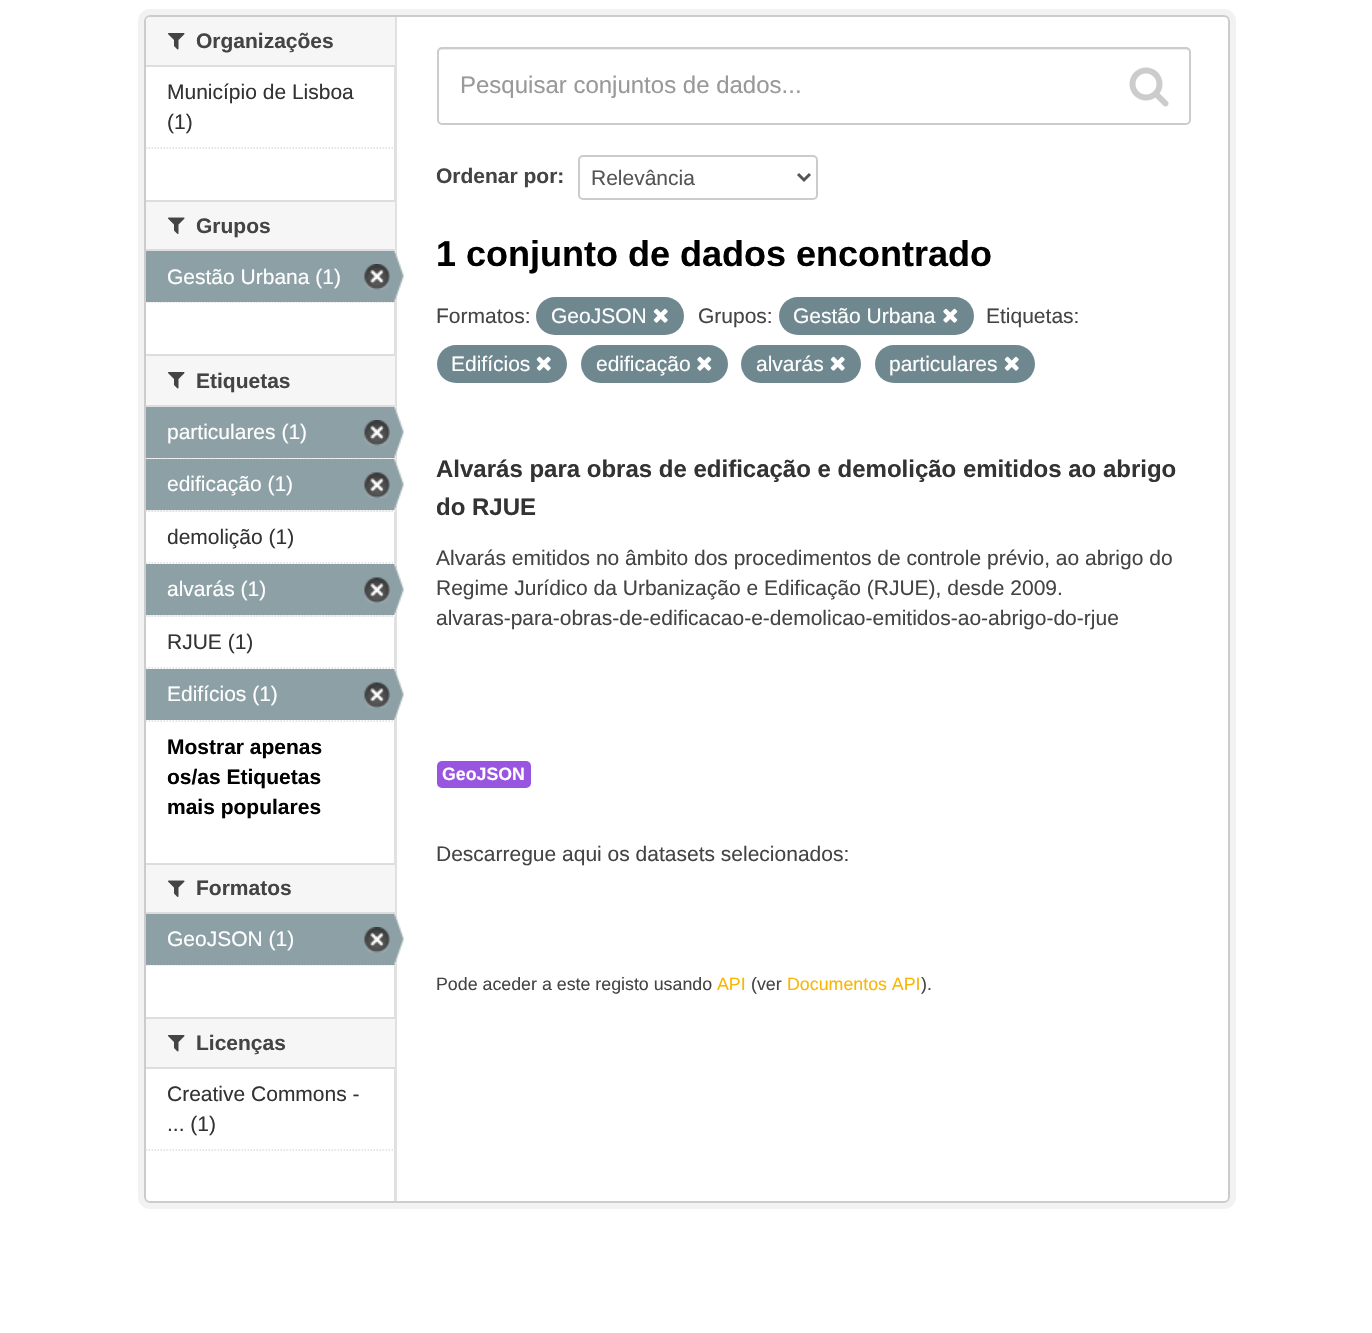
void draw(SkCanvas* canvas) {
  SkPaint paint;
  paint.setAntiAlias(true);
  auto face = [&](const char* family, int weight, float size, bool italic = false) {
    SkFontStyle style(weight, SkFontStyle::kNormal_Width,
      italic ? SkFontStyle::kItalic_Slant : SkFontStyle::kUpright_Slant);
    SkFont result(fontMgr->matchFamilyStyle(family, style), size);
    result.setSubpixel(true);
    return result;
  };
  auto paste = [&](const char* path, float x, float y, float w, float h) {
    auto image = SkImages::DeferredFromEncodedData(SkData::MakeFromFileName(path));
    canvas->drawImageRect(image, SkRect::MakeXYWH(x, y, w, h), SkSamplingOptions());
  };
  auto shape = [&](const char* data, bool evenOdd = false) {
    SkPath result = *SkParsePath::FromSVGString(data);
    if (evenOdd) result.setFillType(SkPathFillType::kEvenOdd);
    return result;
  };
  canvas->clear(0xffffffff);
  paint.setStroke(true);
  paint.setStrokeWidth(6);
  paint.setColor(0xfff2f2f2);
  canvas->drawRoundRect(SkRect::MakeXYWH(141, 12, 1092, 1194), 9, 9, paint);
  paint.setStroke(false);
  paint.setColor(0xffffffff);
  canvas->drawRoundRect(SkRect::MakeXYWH(144, 15, 1086, 1188), 6, 6, paint);
  paint.setColor(0xffe1e1e1);
  canvas->drawRect(SkRect::MakeXYWH(394, 15, 3, 1188), paint);
  paint.setStroke(true);
  paint.setStrokeWidth(2);
  paint.setColor(0xffcccccc);
  canvas->drawRoundRect(SkRect::MakeXYWH(145, 16, 1084, 1186), 5, 5, paint);
  paint.setStroke(false);
  paint.setColor(0xfff6f6f6);
  canvas->drawPath(shape("M151 17H395V66H146V22C146 19 148 17 151 17Z"), paint);
  paint.setColor(0xffdddddd);
  canvas->drawRect(SkRect::MakeXYWH(146, 65, 249, 2), paint);
  paste("img/1.png", 168, 33, 17, 17);
  paint.setStroke(true);
  paint.setStrokeWidth(1.5f);
  paint.setPathEffect(SkDashPathEffect::Make({{1.5f, 1.5f}}, 0));
  canvas->drawPath(shape("M145.5 148H394.5"), paint);
  paint.setPathEffect(nullptr);
  paint.setStroke(false);
  {
    const struct { float x, y, w, h; SkColor color; } items[] = {
      {146, 202, 249, 47, 0xfff6f6f6},
      {146, 200, 249, 2, 0xffdddddd},
      {146, 249, 249, 2, 0xffdddddd},
    };
    for (auto [x, y, w, h, color] : items) {
      paint.setColor(color);
      canvas->drawRect(SkRect::MakeXYWH(x, y, w, h), paint);
    }
  }
  paste("img/2.png", 168, 217, 17, 17);
  paint.setStroke(true);
  paint.setPathEffect(SkDashPathEffect::Make({{1.5f, 1.5f}}, 0));
  canvas->drawPath(shape("M145.5 302H394.5"), paint);
  paint.setPathEffect(nullptr);
  paint.setStroke(false);
  paint.setColor(0xff8ca0a6);
  canvas->drawRect(SkRect::MakeXYWH(146, 251, 249, 51), paint);
  paste("img/3.png", 364, 264, 26, 26);
  paste("img/4.png", 394, 250, 10, 52);
  {
    const struct { float x, y, w, h; SkColor color; } items[] = {
      {146, 356, 249, 49, 0xfff6f6f6},
      {146, 354, 249, 2, 0xffdddddd},
      {146, 405, 249, 2, 0xffdddddd},
    };
    for (auto [x, y, w, h, color] : items) {
      paint.setColor(color);
      canvas->drawRect(SkRect::MakeXYWH(x, y, w, h), paint);
    }
  }
  paste("img/1.png", 168, 372, 17, 17);
  paint.setColor(0xfff6f6f6);
  canvas->drawRect(SkRect::MakeXYWH(146, 458, 249, 1), paint);
  paint.setStroke(true);
  paint.setColor(0xffdddddd);
  paint.setPathEffect(SkDashPathEffect::Make({{1.5f, 1.5f}}, 0));
  canvas->drawPath(shape("M145.5 458H394.5"), paint);
  paint.setPathEffect(nullptr);
  paint.setStroke(false);
  paint.setColor(0xff8ca0a6);
  canvas->drawRect(SkRect::MakeXYWH(146, 407, 249, 51), paint);
  paste("img/3.png", 364, 420, 26, 26);
  paste("img/4.png", 394, 406, 10, 52);
  paint.setColor(0xfff6f6f6);
  canvas->drawRect(SkRect::MakeXYWH(146, 510, 249, 2), paint);
  paint.setStroke(true);
  paint.setColor(0xffdddddd);
  paint.setPathEffect(SkDashPathEffect::Make({{1.5f, 1.5f}}, 0));
  canvas->drawPath(shape("M145.5 511H394.5"), paint);
  paint.setPathEffect(nullptr);
  paint.setStroke(false);
  paint.setColor(0xff8ca0a6);
  canvas->drawRect(SkRect::MakeXYWH(146, 459, 249, 51), paint);
  paste("img/5.png", 364, 472, 26, 26);
  paste("img/6.png", 394, 459, 10, 51);
  paint.setStroke(true);
  paint.setColor(0xffdddddd);
  paint.setPathEffect(SkDashPathEffect::Make({{1.5f, 1.5f}}, 0));
  canvas->drawPath(shape("M145.5 563H394.5"), paint);
  paint.setPathEffect(nullptr);
  paint.setStroke(false);
  paint.setColor(0xfff6f6f6);
  canvas->drawRect(SkRect::MakeXYWH(146, 615, 249, 2), paint);
  paint.setStroke(true);
  paint.setColor(0xffdddddd);
  paint.setPathEffect(SkDashPathEffect::Make({{1.5f, 1.5f}}, 0));
  canvas->drawPath(shape("M145.5 616H394.5"), paint);
  paint.setPathEffect(nullptr);
  paint.setStroke(false);
  paint.setColor(0xff8ca0a6);
  canvas->drawRect(SkRect::MakeXYWH(146, 564, 249, 51), paint);
  paste("img/5.png", 364, 577, 26, 26);
  paste("img/6.png", 394, 564, 10, 51);
  paint.setStroke(true);
  paint.setColor(0xffdddddd);
  paint.setPathEffect(SkDashPathEffect::Make({{1.5f, 1.5f}}, 0));
  canvas->drawPath(shape("M145.5 668H394.5"), paint);
  paint.setPathEffect(nullptr);
  paint.setStroke(false);
  paint.setColor(0xff8ca0a6);
  canvas->drawRect(SkRect::MakeXYWH(146, 669, 249, 51), paint);
  paste("img/5.png", 364, 682, 26, 26);
  paste("img/6.png", 394, 669, 10, 51);
  paint.setStroke(true);
  paint.setColor(0xffdddddd);
  paint.setPathEffect(SkDashPathEffect::Make({{1.5f, 1.5f}}, 0));
  canvas->drawPath(shape("M145.5 721H394.5"), paint);
  paint.setPathEffect(nullptr);
  paint.setStroke(false);
  {
    const struct { float x, y, w, h; SkColor color; } items[] = {
      {146, 865, 249, 47, 0xfff6f6f6},
      {146, 863, 249, 2, 0xffdddddd},
      {146, 912, 249, 2, 0xffdddddd},
    };
    for (auto [x, y, w, h, color] : items) {
      paint.setColor(color);
      canvas->drawRect(SkRect::MakeXYWH(x, y, w, h), paint);
    }
  }
  paste("img/2.png", 168, 880, 17, 17);
  paint.setStroke(true);
  paint.setPathEffect(SkDashPathEffect::Make({{1.5f, 1.5f}}, 0));
  canvas->drawPath(shape("M145.5 965H394.5"), paint);
  paint.setPathEffect(nullptr);
  paint.setStroke(false);
  paint.setColor(0xff8ca0a6);
  canvas->drawRect(SkRect::MakeXYWH(146, 914, 249, 51), paint);
  paste("img/3.png", 364, 927, 26, 26);
  paste("img/4.png", 394, 913, 10, 52);
  {
    const struct { float x, y, w, h; SkColor color; } items[] = {
      {146, 1019, 249, 48, 0xfff6f6f6},
      {146, 1017, 249, 2, 0xffdddddd},
      {146, 1067, 249, 2, 0xffdddddd},
    };
    for (auto [x, y, w, h, color] : items) {
      paint.setColor(color);
      canvas->drawRect(SkRect::MakeXYWH(x, y, w, h), paint);
    }
  }
  paste("img/1.png", 168, 1035, 17, 17);
  paint.setStroke(true);
  paint.setPathEffect(SkDashPathEffect::Make({{1.5f, 1.5f}}, 0));
  canvas->drawPath(shape("M145.5 1150H394.5"), paint);
  paint.setPathEffect(nullptr);
  paint.setStroke(false);
  paint.setColor(0xffececec);
  canvas->drawPath(shape("M441 50H1186C1188 50 1190 51 1190 52C1190 50 1189 48 1187 48H441C439 48 438 50 438 52C438 51 439 50 441 50Z"), paint);
  paint.setStroke(true);
  paint.setStrokeWidth(2);
  paint.setColor(0xffcccccc);
  canvas->drawRoundRect(SkRect::MakeXYWH(438, 48, 752, 76), 4, 4, paint);
  paste("img/7.png", 1129, 67, 40, 40);
  canvas->drawRoundRect(SkRect::MakeXYWH(579, 156, 238, 43), 4, 4, paint);
  paint.setStrokeWidth(3);
  paint.setColor(0xff555555);
  canvas->drawPath(shape("M798 174L804 180L810 174"), paint);
  paint.setStroke(false);
  paint.setColor(0xff6f8890);
  canvas->drawRoundRect(SkRect::MakeXYWH(536, 297, 148, 38), 19, 19, paint);
  paste("img/8.png", 653, 308, 15, 15);
  canvas->drawRoundRect(SkRect::MakeXYWH(779, 297, 195, 38), 19, 19, paint);
  paste("img/9.png", 943, 308, 15, 15);
  canvas->drawRoundRect(SkRect::MakeXYWH(437, 345, 130, 38), 19, 19, paint);
  paste("img/8.png", 536, 356, 15, 15);
  canvas->drawRoundRect(SkRect::MakeXYWH(581, 345, 147, 38), 19, 19, paint);
  paste("img/9.png", 697, 356, 15, 15);
  canvas->drawRoundRect(SkRect::MakeXYWH(741, 345, 120, 38), 19, 19, paint);
  paste("img/8.png", 830, 356, 15, 15);
  canvas->drawRoundRect(SkRect::MakeXYWH(875, 345, 160, 38), 19, 19, paint);
  paste("img/8.png", 1004, 356, 15, 15);
  paint.setColor(0xff9855e0);
  canvas->drawRoundRect(SkRect::MakeXYWH(437, 761, 94, 27), 5, 5, paint);
  auto f0 = face("Liberation Sans", 700, 21);
  paint.setColor(0xff444444);
  canvas->drawString("Organizações", 196, 48, f0, paint);
  auto f1 = face("Liberation Sans", 400, 21);
  paint.setColor(0xff333333);
  canvas->drawString("Município de Lisboa", 167, 99, f1, paint);
  canvas->drawString("(1)", 167, 129, f1, paint);
  paint.setColor(0xff444444);
  canvas->drawString("Grupos", 196, 233, f0, paint);
  paint.setColor(0xffffffff);
  canvas->drawString("Gestão Urbana (1)", 167, 284, f1, paint);
  paint.setColor(0xff444444);
  canvas->drawString("Etiquetas", 196, 388, f0, paint);
  paint.setColor(0xffffffff);
  canvas->drawString("particulares (1)", 167, 439, f1, paint);
  canvas->drawString("edificação (1)", 167, 491, f1, paint);
  paint.setColor(0xff333333);
  canvas->drawString("demolição (1)", 167, 544, f1, paint);
  paint.setColor(0xffffffff);
  canvas->drawString("alvarás (1)", 167, 596, f1, paint);
  paint.setColor(0xff333333);
  canvas->drawString("RJUE (1)", 167, 649, f1, paint);
  paint.setColor(0xffffffff);
  canvas->drawString("Edifícios (1)", 167, 701, f1, paint);
  paint.setColor(0xff000000);
  {
    const struct { const char* s; float x, y; } items[] = {
      {"Mostrar apenas", 167, 754},
      {"os/as Etiquetas", 167, 784},
      {"mais populares", 167, 814},
    };
    for (auto [s, x, y] : items) {
      canvas->drawString(s, x, y, f0, paint);
    }
  }
  paint.setColor(0xff444444);
  canvas->drawString("Formatos", 196, 895, f0, paint);
  paint.setColor(0xffffffff);
  canvas->drawString("GeoJSON (1)", 167, 946, f1, paint);
  paint.setColor(0xff444444);
  canvas->drawString("Licenças", 196, 1050, f0, paint);
  paint.setColor(0xff333333);
  canvas->drawString("Creative Commons -", 167, 1101, f1, paint);
  canvas->drawString("... (1)", 167, 1131, f1, paint);
  auto f2 = face("Liberation Sans", 400, 24);
  paint.setColor(0xff999999);
  canvas->drawString("Pesquisar conjuntos de dados...", 460, 93, f2, paint);
  paint.setColor(0xff444444);
  canvas->drawString("Ordenar por:", 436, 183, f0, paint);
  paint.setColor(0xff555555);
  canvas->drawString("Relevância", 591, 185, f1, paint);
  auto f3 = face("Liberation Sans", 700, 36);
  paint.setColor(0xff000000);
  canvas->drawString("1 conjunto de dados encontrado", 436, 266, f3, paint);
  paint.setColor(0xff444444);
  canvas->drawString("Formatos:", 436, 323, f1, paint);
  paint.setColor(0xffffffff);
  canvas->drawString("GeoJSON", 551, 323, f1, paint);
  paint.setColor(0xff444444);
  canvas->drawString("Grupos:", 698, 323, f1, paint);
  paint.setColor(0xffffffff);
  canvas->drawString("Gestão Urbana", 793, 323, f1, paint);
  paint.setColor(0xff444444);
  canvas->drawString("Etiquetas:", 986, 323, f1, paint);
  paint.setColor(0xffffffff);
  {
    const struct { const char* s; float x, y; } items[] = {
      {"Edifícios", 451, 371},
      {"edificação", 596, 371},
      {"alvarás", 756, 371},
      {"particulares", 889, 371},
    };
    for (auto [s, x, y] : items) {
      canvas->drawString(s, x, y, f1, paint);
    }
  }
  auto f4 = face("Liberation Sans", 700, 24);
  paint.setColor(0xff333333);
  canvas->drawString("Alvarás para obras de edificação e demolição emitidos ao abrigo", 436, 477, f4, paint);
  canvas->drawString("do RJUE", 436, 515, f4, paint);
  paint.setColor(0xff444444);
  {
    const struct { const char* s; float x, y; } items[] = {
      {"Alvarás emitidos no âmbito dos procedimentos de controle prévio, ao abrigo do", 436, 565},
      {"Regime Jurídico da Urbanização e Edificação (RJUE), desde 2009.", 436, 595},
      {"alvaras-para-obras-de-edificacao-e-demolicao-emitidos-ao-abrigo-do-rjue", 436, 625},
    };
    for (auto [s, x, y] : items) {
      canvas->drawString(s, x, y, f1, paint);
    }
  }
  auto f5 = face("Liberation Sans", 700, 17.75f);
  paint.setColor(0xffffffff);
  canvas->drawString("GeoJSON", 442, 780, f5, paint);
  paint.setColor(0xff444444);
  canvas->drawString("Descarregue aqui os datasets selecionados:", 436, 861, f1, paint);
  auto f6 = face("Liberation Sans", 400, 17.8f);
  canvas->drawString("Pode aceder a este registo usando", 436, 990, f6, paint);
  paint.setColor(0xfffbb600);
  canvas->drawString("API", 717, 990, f6, paint);
  paint.setColor(0xff444444);
  canvas->drawString("(ver", 751, 990, f6, paint);
  paint.setColor(0xfffbb600);
  canvas->drawString("Documentos API", 787, 990, f6, paint);
  paint.setColor(0xff444444);
  canvas->drawString(").", 921, 990, f6, paint);
}
